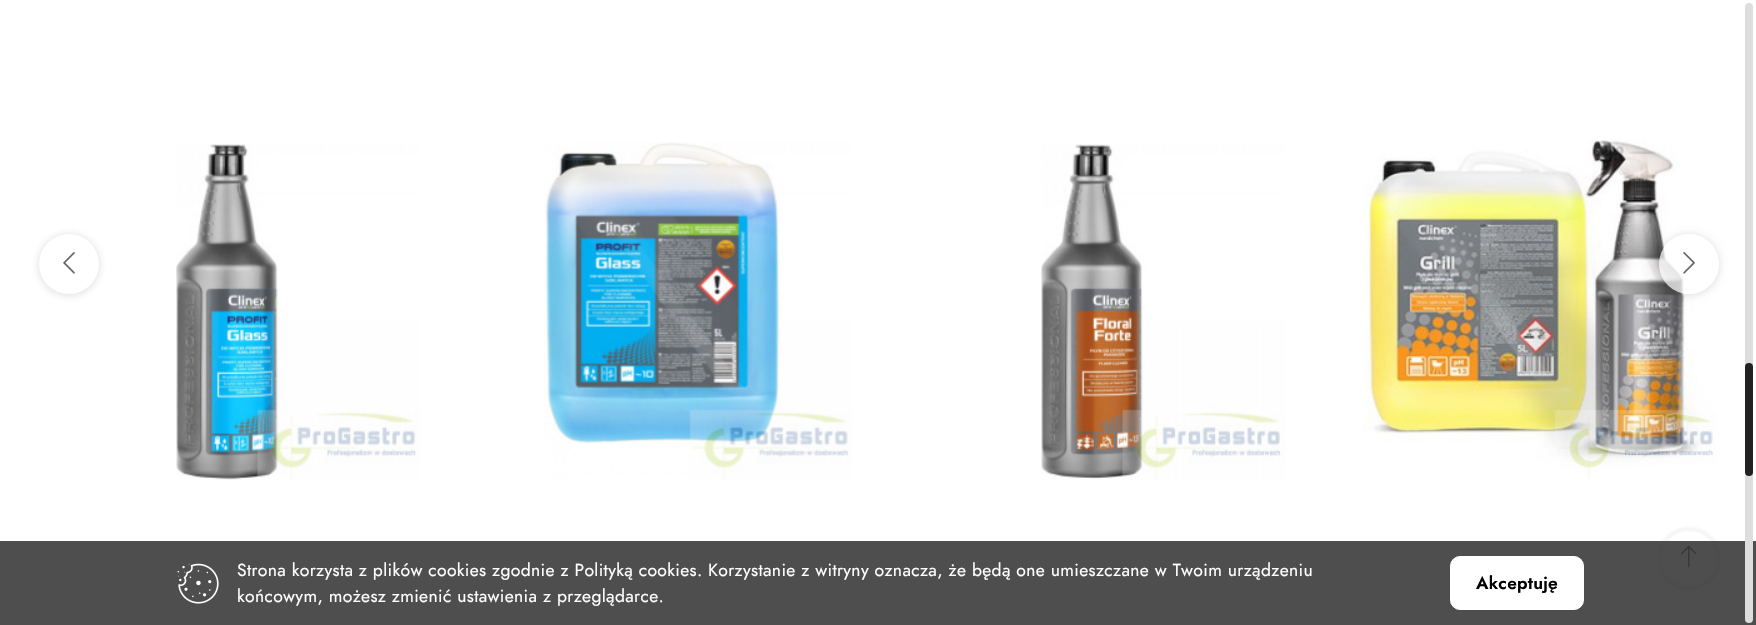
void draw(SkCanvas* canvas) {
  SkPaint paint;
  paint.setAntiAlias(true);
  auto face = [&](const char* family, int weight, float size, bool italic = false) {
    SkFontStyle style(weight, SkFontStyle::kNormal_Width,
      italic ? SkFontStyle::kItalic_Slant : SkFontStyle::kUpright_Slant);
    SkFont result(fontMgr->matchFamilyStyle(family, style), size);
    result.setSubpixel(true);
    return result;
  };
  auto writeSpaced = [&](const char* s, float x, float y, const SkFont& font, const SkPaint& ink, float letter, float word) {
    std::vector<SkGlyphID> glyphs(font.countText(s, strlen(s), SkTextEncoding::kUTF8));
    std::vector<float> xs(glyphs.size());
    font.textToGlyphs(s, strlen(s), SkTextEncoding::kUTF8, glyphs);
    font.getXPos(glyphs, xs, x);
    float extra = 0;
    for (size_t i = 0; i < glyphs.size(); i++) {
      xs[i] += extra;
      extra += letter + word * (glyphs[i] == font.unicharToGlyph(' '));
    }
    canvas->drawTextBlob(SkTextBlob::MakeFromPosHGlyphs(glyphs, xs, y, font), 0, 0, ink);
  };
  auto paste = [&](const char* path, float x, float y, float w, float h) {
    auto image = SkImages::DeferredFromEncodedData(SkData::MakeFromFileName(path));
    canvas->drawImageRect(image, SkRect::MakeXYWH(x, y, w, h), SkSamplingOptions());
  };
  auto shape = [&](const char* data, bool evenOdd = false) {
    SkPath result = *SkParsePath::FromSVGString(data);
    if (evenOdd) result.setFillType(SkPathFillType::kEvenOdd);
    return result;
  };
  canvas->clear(0xffffffff);
  paste("img/1.png", 176, 144, 244, 336);
  paste("img/2.png", 544, 142, 308, 338);
  paste("img/3.png", 1041, 144, 244, 336);
  paste("img/4.png", 1363, 139, 353, 340);
  paint.setColor(0x334d4d4d);
  paint.setMaskFilter(SkMaskFilter::MakeBlur(kNormal_SkBlurStyle, 4));
  canvas->drawRoundRect(SkRect::MakeXYWH(39, 235, 60, 60), 30, 30, paint);
  paint.setMaskFilter(nullptr);
  paint.setColor(0xffffffff);
  canvas->drawCircle(69, 264, 30, paint);
  paste("img/5.png", 63, 252, 12, 22);
  canvas->save();
  canvas->clipPath(shape("M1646 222H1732V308H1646ZM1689 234C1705.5 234 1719 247.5 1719 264C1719 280.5 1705.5 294 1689 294C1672.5 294 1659 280.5 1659 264C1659 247.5 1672.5 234 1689 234Z", true), true);
  paint.setColor(0x24000000);
  paint.setMaskFilter(SkMaskFilter::MakeBlur(kNormal_SkBlurStyle, 4));
  canvas->drawRoundRect(SkRect::MakeXYWH(1659, 235, 60, 60), 30, 30, paint);
  paint.setMaskFilter(nullptr);
  canvas->restore();
  paint.setColor(0xb3ffffff);
  canvas->drawCircle(1689, 264, 30, paint);
  paste("img/6.png", 1683, 252, 12, 22);
  paint.setColor(0x33666666);
  paint.setMaskFilter(SkMaskFilter::MakeBlur(kNormal_SkBlurStyle, 2));
  canvas->drawRoundRect(SkRect::MakeXYWH(1659, 529, 60, 60), 30, 30, paint);
  paint.setMaskFilter(nullptr);
  paint.setColor(0xffffffff);
  canvas->drawCircle(1689, 558, 28.5f, paint);
  paint.setStroke(true);
  paint.setStrokeWidth(3);
  paint.setColor(0xfff7f7f7);
  canvas->drawCircle(1689, 558, 28.5f, paint);
  paste("img/8.png", 1681, 545, 16, 23);
  paint.setStroke(false);
  paint.setColor(0xcc222222);
  canvas->drawRect(SkRect::MakeXYWH(0, 541, 1756, 84), paint);
  paste("img/7.png", 177, 563, 42, 41);
  paint.setColor(0xffffffff);
  canvas->drawRoundRect(SkRect::MakeXYWH(1450.5f, 556.5f, 133, 53), 9.5f, 9.5f, paint);
  paint.setStroke(true);
  paint.setStrokeWidth(1);
  canvas->drawRoundRect(SkRect::MakeXYWH(1450.5f, 556.5f, 133, 53), 9.5f, 9.5f, paint);
  paint.setStroke(false);
  paint.setColor(0xffdddddd);
  canvas->drawRoundRect(SkRect::MakeXYWH(1745, 3, 8, 620), 4, 4, paint);
  paint.setColor(0xff222222);
  canvas->drawRoundRect(SkRect::MakeXYWH(1745, 363, 8, 113), 4, 4, paint);
  auto f0 = face("Jost", 400, 17.5f);
  paint.setColor(0xffffffff);
  writeSpaced("Strona korzysta z plików cookies zgodnie z Polityką cookies. Korzystanie z witryny oznacza, że będą one umieszczane w Twoim urządzeniu", 237, 576, f0, paint, 0.35f, 0);
  writeSpaced("końcowym, możesz zmienić ustawienia z przeglądarce.", 237, 602, f0, paint, 0.35f, 0);
  auto f1 = face("Jost", 600, 17.5f);
  paint.setColor(0xff000000);
  writeSpaced("Akceptuję", 1476, 589, f1, paint, 0.25f, 0);
}
